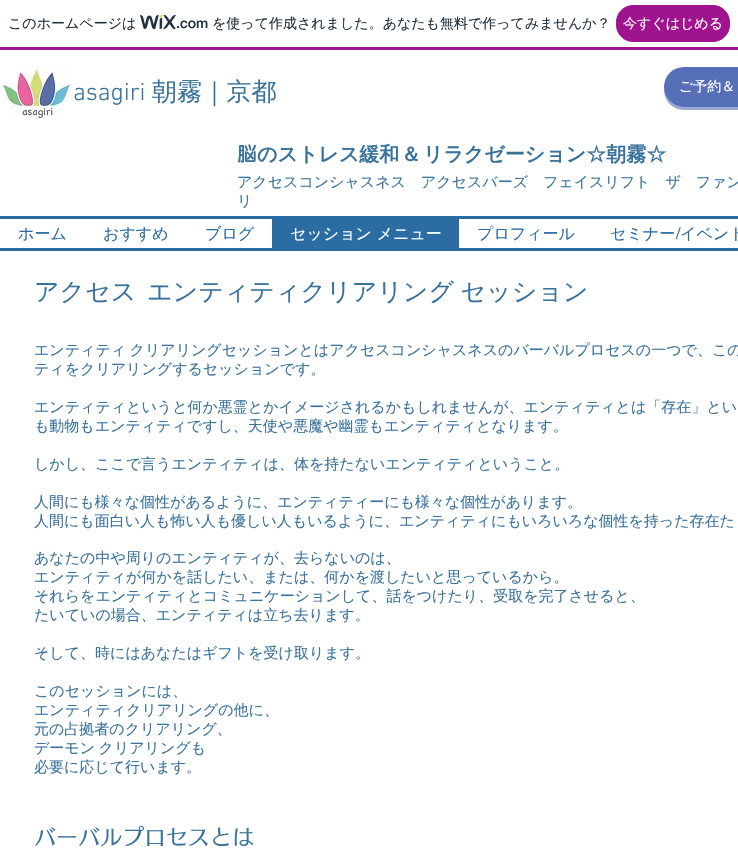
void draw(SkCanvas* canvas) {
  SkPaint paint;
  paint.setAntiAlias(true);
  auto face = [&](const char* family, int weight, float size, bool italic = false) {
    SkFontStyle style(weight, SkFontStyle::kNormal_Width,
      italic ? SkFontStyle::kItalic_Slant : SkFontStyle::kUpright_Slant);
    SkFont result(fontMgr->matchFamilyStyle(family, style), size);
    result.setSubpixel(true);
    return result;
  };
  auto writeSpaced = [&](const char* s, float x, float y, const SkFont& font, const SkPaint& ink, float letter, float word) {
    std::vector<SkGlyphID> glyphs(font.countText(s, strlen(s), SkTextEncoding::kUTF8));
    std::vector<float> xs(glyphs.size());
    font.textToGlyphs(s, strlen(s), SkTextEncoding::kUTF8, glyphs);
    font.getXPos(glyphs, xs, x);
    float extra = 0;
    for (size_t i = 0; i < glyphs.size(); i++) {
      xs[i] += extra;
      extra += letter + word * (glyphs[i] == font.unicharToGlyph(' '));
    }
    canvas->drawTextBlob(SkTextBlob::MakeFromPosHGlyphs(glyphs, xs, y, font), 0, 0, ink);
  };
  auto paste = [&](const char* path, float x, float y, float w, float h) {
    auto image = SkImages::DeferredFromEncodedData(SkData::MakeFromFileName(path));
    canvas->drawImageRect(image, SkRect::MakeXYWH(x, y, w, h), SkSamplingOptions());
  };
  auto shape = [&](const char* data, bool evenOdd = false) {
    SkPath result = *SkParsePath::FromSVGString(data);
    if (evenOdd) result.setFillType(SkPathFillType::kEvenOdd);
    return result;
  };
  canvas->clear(0xffffffff);
  paint.setColor(0xffa0138e);
  canvas->drawRect(SkRect::MakeXYWH(0, 47, 738, 3), paint);
  paste("img/1.png", 140, 15, 36, 15);
  canvas->drawRoundRect(SkRect::MakeXYWH(616.5f, 5.5f, 113, 36), 16.5f, 16.5f, paint);
  paint.setStroke(true);
  paint.setStrokeWidth(1);
  canvas->drawRoundRect(SkRect::MakeXYWH(616.5f, 5.5f, 113, 36), 16.5f, 16.5f, paint);
  paste("img/2.png", 0, 67, 72, 52);
  paint.setStroke(false);
  paint.setColor(0xff9aa9d4);
  canvas->drawPath(shape("M664 88V90C664 101 673 110 684 110H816C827 110 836 101 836 90V88C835 99 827 107 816 107H684C673 107 665 99 664 88Z"), paint);
  paint.setColor(0xff566fb8);
  canvas->drawRoundRect(SkRect::MakeXYWH(664, 67, 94, 40), 20, 20, paint);
  {
    const struct { float x, y, w, h; SkColor color; } items[] = {
      {0, 216, 738, 3, 0xff2b6ca3},
      {0, 248, 738, 3, 0xff2b6ca3},
      {272, 219, 187, 29, 0xff2b6ca3},
    };
    for (auto [x, y, w, h, color] : items) {
      paint.setColor(color);
      canvas->drawRect(SkRect::MakeXYWH(x, y, w, h), paint);
    }
  }
  auto f0 = face("WenQuanYi Zen Hei", 500, 14);
  paint.setColor(0xff20303c);
  canvas->drawString("このホームページは", 8, 28, f0, paint);
  auto f1 = face("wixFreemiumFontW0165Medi", 500, 14);
  canvas->drawString(".com", 176, 28, f1, paint);
  canvas->drawString("を使って作成されました。あなたも無料で作ってみませんか？", 212, 28, f0, paint);
  paint.setColor(0xffffffff);
  canvas->drawString("今すぐはじめる", 623, 28, f0, paint);
  auto f2 = face("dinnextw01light", 300, 25);
  paint.setColor(0xff39729b);
  canvas->drawString("asagiri", 73, 100, f2, paint);
  auto f3 = face("WenQuanYi Zen Hei", 500, 25);
  canvas->drawString("朝霧｜京都", 152, 100, f3, paint);
  paint.setColor(0xffffffff);
  canvas->drawString("ご予約＆", 679, 91, f0, paint);
  auto f4 = face("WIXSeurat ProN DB", 600, 20);
  paint.setColor(0xff39729b);
  canvas->drawString("脳", 237, 161, f4, paint);
  auto f5 = face("WenQuanYi Zen Hei", 700, 20);
  writeSpaced("のストレス緩和 & リラクゼーション☆朝霧☆", 257, 161, f5, paint, 0, -1);
  auto f6 = face("WenQuanYi Zen Hei", 500, 15);
  canvas->drawString("アクセスコンシャスネス　アクセスバーズ　フェイスリフト　ザ　ファン", 237, 187, f6, paint);
  canvas->drawString("リ", 237, 206, f6, paint);
  auto f7 = face("WenQuanYi Zen Hei", 500, 16);
  paint.setColor(0xff2b6ca3);
  {
    const struct { const char* s; float x, y; } items[] = {
      {"ホーム", 18, 239},
      {"おすすめ", 103, 239},
      {"ブログ", 205, 239},
    };
    for (auto [s, x, y] : items) {
      canvas->drawString(s, x, y, f7, paint);
    }
  }
  paint.setColor(0xffffffff);
  canvas->drawString("セッション メニュー", 290, 239, f7, paint);
  paint.setColor(0xff2b6ca3);
  canvas->drawString("プロフィール", 477, 239, f7, paint);
  canvas->drawString("セミナー", 610, 239, f7, paint);
  auto f8 = face("helvetica", 400, 16);
  canvas->drawString("/", 676, 239, f8, paint);
  canvas->drawString("イベント", 680, 239, f7, paint);
  paint.setColor(0xff39729b);
  canvas->drawString("アクセス", 34, 300, f3, paint);
  writeSpaced("エンティティクリアリング セッション", 147, 300, f3, paint, 0, -1);
  writeSpaced("エンティティ クリアリングセッションとはアクセスコンシャスネスのバーバルプロセスの一つで、この", 34, 355, f6, paint, 0, -1);
  {
    const struct { const char* s; float x, y; } items[] = {
      {"ティをクリアリングするセッションです。", 34, 374},
      {"エンティティというと何か悪霊とかイメージされるかもしれませんが、エンティティとは「存在」とい", 34, 412},
      {"も動物もエンティティですし、天使や悪魔や幽霊もエンティティとなります。", 34, 431},
      {"しかし、ここで言うエンティティは、体を持たないエンティティということ。", 34, 469},
      {"人間にも様々な個性があるように、エンティティーにも様々な個性があります。", 34, 507},
      {"人間にも面白い人も怖い人も優しい人もいるように、エンティティにもいろいろな個性を持った存在た", 34, 526},
      {"あなたの中や周りのエンティティが、去らないのは、", 34, 563},
      {"エンティティが何かを話したい、または、何かを渡したいと思っているから。", 34, 582},
      {"それらをエンティティとコミュニケーションして、話をつけたり、受取を完了させると、", 34, 601},
      {"たいていの場合、エンティティは立ち去ります。", 34, 620},
      {"そして、時にはあなたはギフトを受け取ります。", 34, 658},
      {"このセッションには、", 34, 696},
      {"エンティティクリアリングの他に、", 34, 715},
      {"元の占拠者のクリアリング、", 34, 734},
    };
    for (auto [s, x, y] : items) {
      canvas->drawString(s, x, y, f6, paint);
    }
  }
  writeSpaced("デーモン クリアリングも", 34, 753, f6, paint, 0, -1);
  canvas->drawString("必要に応じて行います。", 34, 772, f6, paint);
  auto f9 = face("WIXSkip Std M", 500, 22);
  canvas->drawString("バーバルプロセスとは", 34, 845, f9, paint);
}
